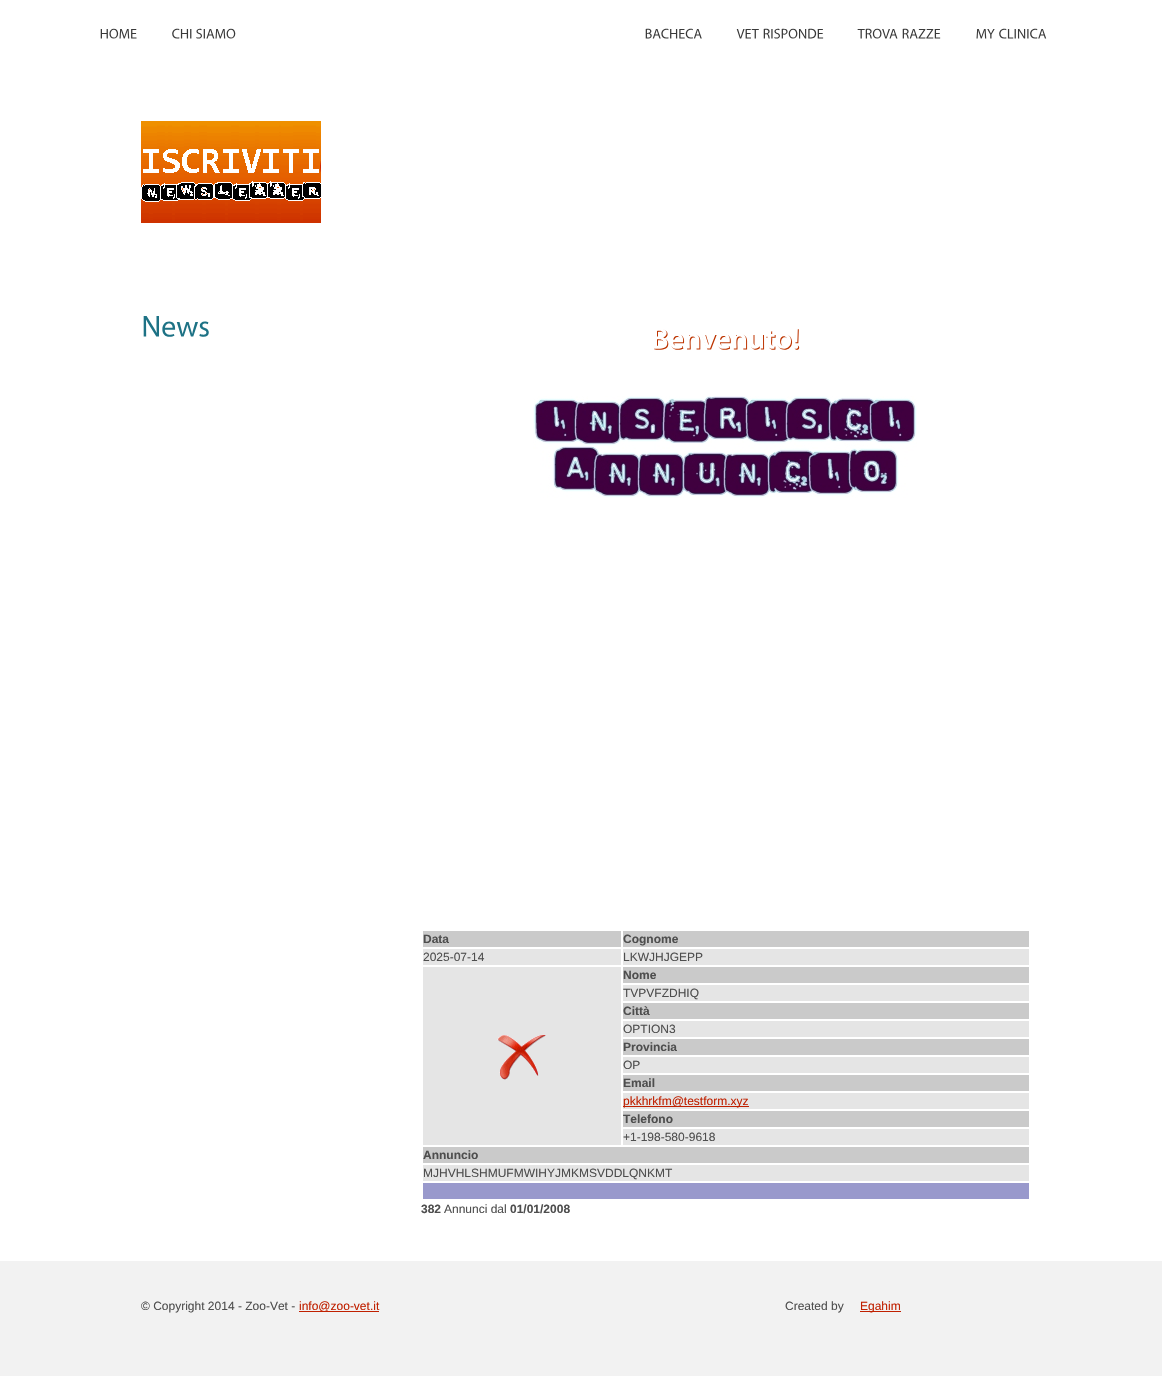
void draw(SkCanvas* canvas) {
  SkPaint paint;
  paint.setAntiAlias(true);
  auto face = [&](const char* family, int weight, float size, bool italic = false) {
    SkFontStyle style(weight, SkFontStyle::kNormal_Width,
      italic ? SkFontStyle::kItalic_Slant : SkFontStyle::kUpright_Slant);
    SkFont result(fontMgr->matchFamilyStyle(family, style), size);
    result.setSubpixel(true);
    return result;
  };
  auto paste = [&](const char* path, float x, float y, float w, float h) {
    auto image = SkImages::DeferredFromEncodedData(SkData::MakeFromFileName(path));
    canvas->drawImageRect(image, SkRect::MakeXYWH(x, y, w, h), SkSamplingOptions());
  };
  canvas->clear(0xfff2f2f2);
  paint.setColor(0xffffffff);
  canvas->drawRect(SkRect::MakeXYWH(0, 0, 1162, 1261), paint);
  paste("img/1.png", 100, 28, 37, 11);
  paste("img/2.png", 172, 28, 20, 11);
  paste("img/3.png", 196, 28, 40, 11);
  paste("img/4.png", 645, 28, 57, 11);
  paste("img/5.png", 736, 29, 23, 10);
  paste("img/6.png", 763, 28, 61, 11);
  paste("img/7.png", 857, 28, 41, 11);
  paste("img/8.png", 902, 28, 39, 11);
  paste("img/9.png", 976, 29, 19, 10);
  paste("img/10.png", 999, 28, 48, 11);
  paste("img/11.png", 141, 121, 180, 102);
  paste("img/12.png", 143, 316, 66, 21);
  paste("img/13.png", 654, 329, 146, 21);
  paste("img/14.png", 533, 396, 384, 102);
  {
    const struct { float x, y, w, h; SkColor color; } items[] = {
      {423, 931, 198, 16, 0xffcacaca},
      {623, 931, 406, 16, 0xffcacaca},
      {423, 949, 198, 16, 0xffe5e5e5},
      {623, 949, 406, 16, 0xffe5e5e5},
      {423, 967, 198, 178, 0xffe5e5e5},
    };
    for (auto [x, y, w, h, color] : items) {
      paint.setColor(color);
      canvas->drawRect(SkRect::MakeXYWH(x, y, w, h), paint);
    }
  }
  paste("img/15.png", 497, 1034, 49, 46);
  {
    const struct { float x, y, w, h; SkColor color; } items[] = {
      {623, 967, 406, 16, 0xffcacaca},
      {623, 985, 406, 16, 0xffe5e5e5},
      {623, 1003, 406, 16, 0xffcacaca},
      {623, 1021, 406, 16, 0xffe5e5e5},
      {623, 1039, 406, 16, 0xffcacaca},
      {623, 1057, 406, 16, 0xffe5e5e5},
      {623, 1075, 406, 16, 0xffcacaca},
      {623, 1093, 406, 16, 0xffe5e5e5},
      {623, 1106, 126, 1, 0xffc02000},
      {623, 1111, 406, 16, 0xffcacaca},
      {623, 1129, 406, 16, 0xffe5e5e5},
      {423, 1147, 606, 16, 0xffcacaca},
      {423, 1165, 606, 16, 0xffe5e5e5},
      {423, 1183, 606, 16, 0xff9999cc},
      {299, 1311, 80, 1, 0xffc02000},
      {860, 1311, 41, 1, 0xffc02000},
    };
    for (auto [x, y, w, h, color] : items) {
      paint.setColor(color);
      canvas->drawRect(SkRect::MakeXYWH(x, y, w, h), paint);
    }
  }
  auto f0 = face("Liberation Sans", 700, 12);
  paint.setColor(0xff4e4e4e);
  canvas->drawString("Data", 423, 943, f0, paint);
  canvas->drawString("Cognome", 623, 943, f0, paint);
  auto f1 = face("Liberation Sans", 400, 12);
  canvas->drawString("2025-07-14", 423, 961, f1, paint);
  canvas->drawString("LKWJHJGEPP", 623, 961, f1, paint);
  canvas->drawString("Nome", 623, 979, f0, paint);
  canvas->drawString("TVPVFZDHIQ", 623, 997, f1, paint);
  canvas->drawString("Città", 623, 1015, f0, paint);
  canvas->drawString("OPTION3", 623, 1033, f1, paint);
  canvas->drawString("Provincia", 623, 1051, f0, paint);
  canvas->drawString("OP", 623, 1069, f1, paint);
  canvas->drawString("Email", 623, 1087, f0, paint);
  paint.setColor(0xffc02000);
  canvas->drawString("pkkhrkfm@testform.xyz", 623, 1105, f1, paint);
  paint.setColor(0xff4e4e4e);
  canvas->drawString("Telefono", 623, 1123, f0, paint);
  canvas->drawString("+1-198-580-9618", 623, 1141, f1, paint);
  canvas->drawString("Annuncio", 423, 1159, f0, paint);
  canvas->drawString("MJHVHLSHMUFMWIHYJMKMSVDDLQNKMT", 423, 1177, f1, paint);
  canvas->drawString("382", 421, 1213, f0, paint);
  canvas->drawString("Annunci dal", 444, 1213, f1, paint);
  canvas->drawString("01/01/2008", 510, 1213, f0, paint);
  canvas->drawString("© Copyright 2014 - Zoo-Vet -", 141, 1310, f1, paint);
  paint.setColor(0xffc02000);
  canvas->drawString("info@zoo-vet.it", 299, 1310, f1, paint);
  paint.setColor(0xff4e4e4e);
  canvas->drawString("Created by", 785, 1310, f1, paint);
  paint.setColor(0xffc02000);
  canvas->drawString("Egahim", 860, 1310, f1, paint);
}
